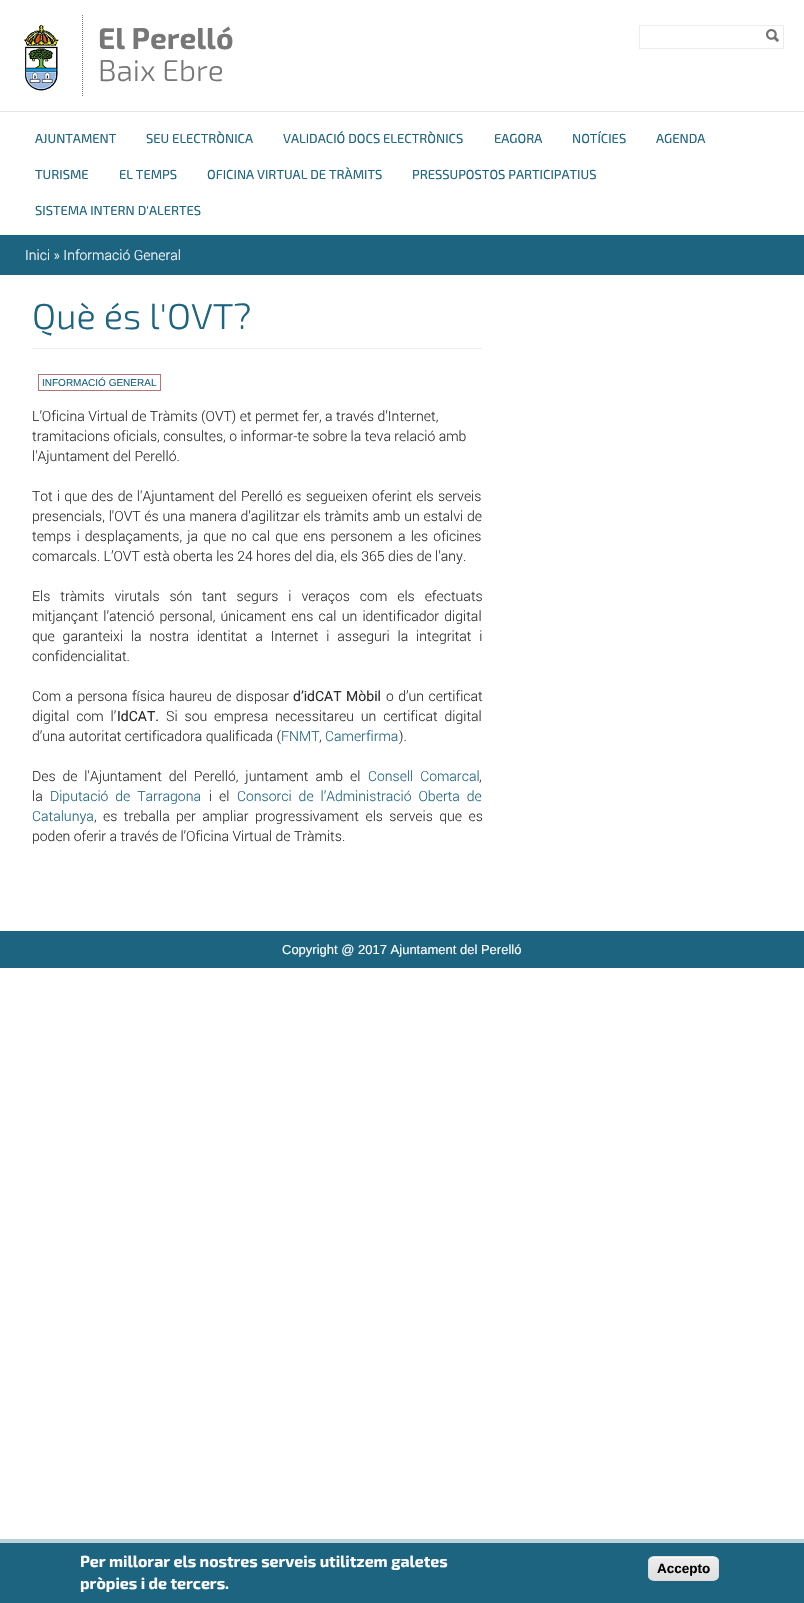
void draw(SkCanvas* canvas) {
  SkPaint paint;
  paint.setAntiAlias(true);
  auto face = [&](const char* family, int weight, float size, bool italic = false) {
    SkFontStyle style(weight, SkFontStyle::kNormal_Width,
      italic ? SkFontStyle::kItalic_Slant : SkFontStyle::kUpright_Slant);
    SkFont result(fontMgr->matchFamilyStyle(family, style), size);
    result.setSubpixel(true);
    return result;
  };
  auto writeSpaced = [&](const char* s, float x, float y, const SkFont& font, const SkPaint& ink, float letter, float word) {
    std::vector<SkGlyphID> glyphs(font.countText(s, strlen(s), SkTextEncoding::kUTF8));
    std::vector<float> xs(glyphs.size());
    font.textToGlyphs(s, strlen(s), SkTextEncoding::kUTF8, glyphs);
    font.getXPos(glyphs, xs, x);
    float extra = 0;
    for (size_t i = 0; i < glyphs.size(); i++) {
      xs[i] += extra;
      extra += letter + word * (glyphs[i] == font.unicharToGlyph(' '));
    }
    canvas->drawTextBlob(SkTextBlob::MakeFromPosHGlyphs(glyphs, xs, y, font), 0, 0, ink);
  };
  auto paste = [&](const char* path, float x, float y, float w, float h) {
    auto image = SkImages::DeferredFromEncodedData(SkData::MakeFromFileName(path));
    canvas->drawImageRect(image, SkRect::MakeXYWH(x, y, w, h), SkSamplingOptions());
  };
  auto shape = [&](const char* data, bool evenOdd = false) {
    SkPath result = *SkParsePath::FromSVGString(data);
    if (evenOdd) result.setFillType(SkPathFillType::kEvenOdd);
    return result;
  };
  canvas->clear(0xffffffff);
  paste("img/1.png", 24, 24, 35, 67);
  paint.setStroke(true);
  paint.setStrokeWidth(1);
  paint.setColor(0xff777777);
  paint.setPathEffect(SkDashPathEffect::Make({{1, 1}}, 0));
  canvas->drawPath(shape("M82.5 15V96"), paint);
  paint.setPathEffect(nullptr);
  paint.setColor(0xffededed);
  canvas->drawRect(SkRect::MakeXYWH(639.5f, 25.5f, 144, 23), paint);
  paste("img/2.png", 766, 29, 13, 13);
  paint.setStroke(false);
  {
    const struct { float x, y, w, h; SkColor color; } items[] = {
      {0, 111, 804, 1, 0xffe4e4e4},
      {0, 235, 804, 40, 0xff1d6481},
      {32, 348, 450, 1, 0xffeeeeee},
    };
    for (auto [x, y, w, h, color] : items) {
      paint.setColor(color);
      canvas->drawRect(SkRect::MakeXYWH(x, y, w, h), paint);
    }
  }
  paint.setStroke(true);
  paint.setColor(0xffb37676);
  canvas->drawRect(SkRect::MakeXYWH(38.5f, 374.5f, 122, 16), paint);
  paint.setStroke(false);
  {
    const struct { float x, y, w, h; SkColor color; } items[] = {
      {0, 931, 804, 37, 0xff1d6481},
      {0, 1543, 804, 60, 0xff1d6481},
      {0, 1539, 804, 4, 0xffbbd0d9},
    };
    for (auto [x, y, w, h, color] : items) {
      paint.setColor(color);
      canvas->drawRect(SkRect::MakeXYWH(x, y, w, h), paint);
    }
  }
  canvas->save();
  canvas->clipPath(shape("M654 1556H713C716.5 1556 719 1558.5 719 1562V1575C719 1578.5 716.5 1581 713 1581H654C650.5 1581 648 1578.5 648 1575V1562C648 1558.5 650.5 1556 654 1556Z"), true);
  {
    const SkColor colors[] = {0xffededed, 0xffdfdfdf};
    const float stops[] = {0.05f, 1};
    const SkPoint ends[] = {{684, 1557}, {684, 1580}};
    paint.setShader(SkGradientShader::MakeLinear(ends, colors, stops, 2, SkTileMode::kClamp));
    paint.setAlpha(255);
  }
  canvas->drawRect(SkRect::MakeXYWH(648, 1557, 71, 23), paint);
  canvas->restore();
  paint.setShader(nullptr);
  paint.setColor(0xffffffff);
  canvas->drawPath(shape("M654 1558H713C716 1558 718 1560 718 1563C718 1555 709 1557 703 1557H664C658 1557 649 1555 649 1563C649 1560 651 1558 654 1558Z"), paint);
  paint.setStroke(true);
  paint.setColor(0xffdcdcdc);
  canvas->drawRoundRect(SkRect::MakeXYWH(648.5f, 1556.5f, 70, 24), 5.5f, 5.5f, paint);
  auto f0 = face("Exo 2", 700, 30);
  paint.setStroke(false);
  paint.setColor(0xff777777);
  canvas->drawString("El Perelló", 98, 49, f0, paint);
  auto f1 = face("Exo 2", 300, 30);
  canvas->drawString("Baix Ebre", 98, 81, f1, paint);
  auto f2 = face("Exo 2", 400, 13);
  paint.setColor(0xff1d6481);
  {
    const struct { const char* s; float x, y; } items[] = {
      {"AJUNTAMENT", 35, 143},
      {"SEU ELECTRÒNICA", 146, 143},
      {"VALIDACIÓ DOCS ELECTRÒNICS", 283, 143},
      {"EAGORA", 494, 143},
      {"NOTÍCIES", 572, 143},
      {"AGENDA", 656, 143},
      {"TURISME", 35, 179},
      {"EL TEMPS", 119, 179},
      {"OFICINA VIRTUAL DE TRÀMITS", 207, 179},
      {"PRESSUPOSTOS PARTICIPATIUS", 412, 179},
      {"SISTEMA INTERN D'ALERTES", 35, 215},
    };
    for (auto [s, x, y] : items) {
      canvas->drawString(s, x, y, f2, paint);
    }
  }
  auto f3 = face("Roboto", 300, 14);
  paint.setColor(0xffffffff);
  canvas->drawString("Inici » Informació General", 25, 260, f3, paint);
  auto f4 = face("Exo 2", 300, 36);
  paint.setColor(0xff1d6481);
  canvas->drawString("Què és l'OVT?", 32, 329, f4, paint);
  auto f5 = face("Liberation Sans", 400, 10);
  canvas->drawString("INFORMACIÓ GENERAL", 42, 386, f5, paint);
  paint.setColor(0xff2d2d2d);
  {
    const struct { const char* s; float x, y; } items[] = {
      {"L’Oficina Virtual de Tràmits (OVT) et permet fer, a través d’Internet,", 32, 421},
      {"tramitacions oficials, consultes, o informar-te sobre la teva relació amb", 32, 441},
      {"l'Ajuntament del Perelló.", 32, 461},
    };
    for (auto [s, x, y] : items) {
      canvas->drawString(s, x, y, f3, paint);
    }
  }
  writeSpaced("Tot i que des de l'Ajuntament del Perelló es segueixen oferint els serveis", 32, 501, f3, paint, 0, 0.8f);
  writeSpaced("presencials, l'OVT és una manera d’agilitzar els tràmits amb un estalvi de", 32, 521, f3, paint, 0, 0.4f);
  writeSpaced("temps i desplaçaments, ja que no cal que ens personem a les oficines", 32, 541, f3, paint, 0, 1.8f);
  canvas->drawString("comarcals. L’OVT està oberta les 24 hores del dia, els 365 dies de l’any.", 32, 561, f3, paint);
  writeSpaced("Els tràmits virutals són tant segurs i veraços com els efectuats", 32, 601, f3, paint, 0, 6.5f);
  writeSpaced("mitjançant l’atenció personal, únicament ens cal un identificador digital", 32, 621, f3, paint, 0, 1.75f);
  writeSpaced("que garanteixi la nostra identitat a Internet i asseguri la integritat i", 32, 641, f3, paint, 0, 4.4f);
  canvas->drawString("confidencialitat.", 32, 661, f3, paint);
  writeSpaced("Com a persona física haureu de disposar", 32, 701, f3, paint, 0, 1);
  auto f6 = face("Roboto", 400, 14);
  writeSpaced("d’idCAT Mòbil", 293, 701, f6, paint, 0, 1);
  writeSpaced("o d’un certificat", 386, 701, f3, paint, 0, 1);
  writeSpaced("digital com l’", 32, 721, f3, paint, 0, 3.5f);
  canvas->drawString("IdCAT.", 117, 721, f6, paint);
  writeSpaced("Si sou empresa necessitareu un certificat digital", 166, 721, f3, paint, 0, 3.5f);
  canvas->drawString("d’una autoritat certificadora qualificada (", 32, 741, f3, paint);
  paint.setColor(0xff1d6481);
  canvas->drawString("FNMT", 281, 741, f3, paint);
  paint.setColor(0xff2d2d2d);
  canvas->drawString(",", 319, 741, f3, paint);
  paint.setColor(0xff1d6481);
  canvas->drawString("Camerfirma", 325, 741, f3, paint);
  paint.setColor(0xff2d2d2d);
  canvas->drawString(").", 399, 741, f3, paint);
  writeSpaced("Des de l'Ajuntament del Perelló, juntament amb el", 32, 781, f3, paint, 0, 3.5f);
  paint.setColor(0xff1d6481);
  writeSpaced("Consell Comarcal", 368, 781, f3, paint, 0, 3.5f);
  paint.setColor(0xff2d2d2d);
  canvas->drawString(",", 479, 781, f3, paint);
  canvas->drawString("la", 32, 801, f3, paint);
  paint.setColor(0xff1d6481);
  writeSpaced("Diputació de Tarragona", 50, 801, f3, paint, 0, 3.5f);
  paint.setColor(0xff2d2d2d);
  writeSpaced("i el", 209, 801, f3, paint, 0, 3.5f);
  paint.setColor(0xff1d6481);
  writeSpaced("Consorci de l’Administració Oberta de", 237, 801, f3, paint, 0, 3.5f);
  canvas->drawString("Catalunya", 32, 821, f3, paint);
  paint.setColor(0xff2d2d2d);
  writeSpaced(", es treballa per ampliar progressivament els serveis que es", 94, 821, f3, paint, 0, 3);
  canvas->drawString("poden oferir a través de l’Oficina Virtual de Tràmits.", 32, 841, f3, paint);
  auto f7 = face("Liberation Sans", 400, 13);
  paint.setColor(0xffffffff);
  canvas->drawString("Copyright @ 2017 Ajuntament del Perelló", 282, 954, f7, paint);
  auto f8 = face("Exo 2", 700, 16);
  canvas->drawString("Per millorar els nostres serveis utilitzem galetes", 80, 1567, f8, paint);
  canvas->drawString("pròpies i de tercers.", 80, 1589, f8, paint);
  auto f9 = face("Liberation Sans", 700, 13.5f);
  paint.setColor(0xff000000);
  canvas->drawString("Accepto", 657, 1573, f9, paint);
}
